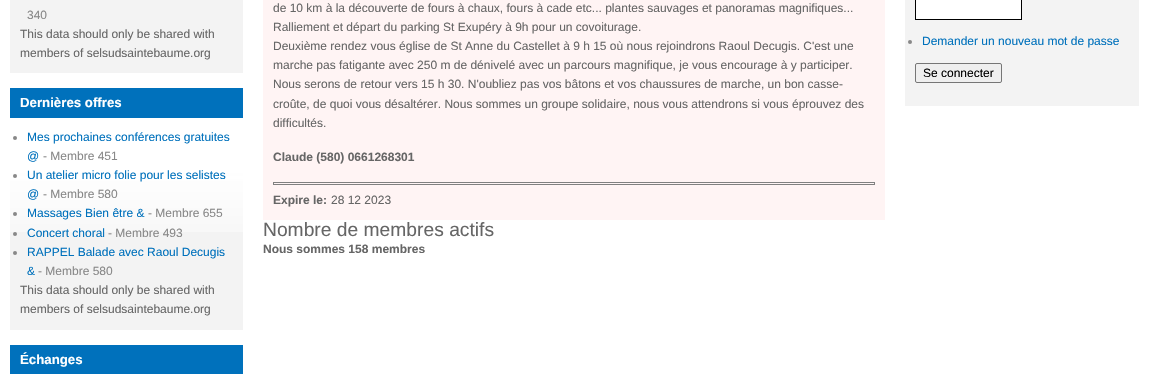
void draw(SkCanvas* canvas) {
  SkPaint paint;
  paint.setAntiAlias(true);
  auto face = [&](const char* family, int weight, float size, bool italic = false) {
    SkFontStyle style(weight, SkFontStyle::kNormal_Width,
      italic ? SkFontStyle::kItalic_Slant : SkFontStyle::kUpright_Slant);
    SkFont result(fontMgr->matchFamilyStyle(family, style), size);
    result.setSubpixel(true);
    return result;
  };
  auto paste = [&](const char* path, float x, float y, float w, float h) {
    auto image = SkImages::DeferredFromEncodedData(SkData::MakeFromFileName(path));
    canvas->drawImageRect(image, SkRect::MakeXYWH(x, y, w, h), SkSamplingOptions());
  };
  canvas->clear(0xffffffff);
  paint.setColor(0xfff3f3f3);
  canvas->drawRect(SkRect::MakeXYWH(10, 0, 233, 73), paint);
  canvas->drawRect(SkRect::MakeXYWH(10, 232, 233, 98), paint);
  paste("img/1.png", 10, 118, 233, 114);
  paint.setColor(0xff0071bc);
  canvas->drawRect(SkRect::MakeXYWH(10, 88, 233, 30), paint);
  paint.setColor(0xff888888);
  canvas->drawCircle(15, 138, 2, paint);
  canvas->drawCircle(15, 176, 2, paint);
  canvas->drawCircle(15, 214, 2, paint);
  canvas->drawCircle(15, 234, 2, paint);
  canvas->drawCircle(15, 253, 2, paint);
  paint.setColor(0xff0071bc);
  canvas->drawRect(SkRect::MakeXYWH(10, 345, 233, 29), paint);
  paint.setColor(0xfffff4f4);
  canvas->drawRect(SkRect::MakeXYWH(263, 0, 622, 220), paint);
  paint.setStroke(true);
  paint.setStrokeWidth(1);
  paint.setColor(0xff808080);
  canvas->drawRect(SkRect::MakeXYWH(273.5f, 182.5f, 601, 2), paint);
  paint.setStroke(false);
  paint.setColor(0xfff3f3f3);
  canvas->drawRect(SkRect::MakeXYWH(905, 0, 234, 106), paint);
  paint.setColor(0xffffffff);
  canvas->drawRect(SkRect::MakeXYWH(915.5f, -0.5f, 106, 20), paint);
  paint.setStroke(true);
  paint.setColor(0xff000000);
  canvas->drawRect(SkRect::MakeXYWH(915.5f, -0.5f, 106, 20), paint);
  paint.setStroke(false);
  paint.setColor(0xff888888);
  canvas->drawCircle(910, 42, 2, paint);
  paint.setColor(0xffefefef);
  canvas->drawRoundRect(SkRect::MakeXYWH(915.5f, 63.5f, 86, 19), 1.5f, 1.5f, paint);
  paint.setStroke(true);
  paint.setColor(0xff767676);
  canvas->drawRoundRect(SkRect::MakeXYWH(915.5f, 63.5f, 86, 19), 1.5f, 1.5f, paint);
  auto f0 = face("Liberation Sans", 400, 12);
  paint.setStroke(false);
  paint.setColor(0xff888888);
  canvas->drawString("340", 27, 19, f0, paint);
  paint.setColor(0xff666666);
  canvas->drawString("This data should only be shared with", 20, 38, f0, paint);
  canvas->drawString("members of selsudsaintebaume.org", 20, 57, f0, paint);
  auto f1 = face("Liberation Sans", 700, 13.25f);
  paint.setColor(0xffffffff);
  canvas->drawString("Dernières offres", 20, 107, f1, paint);
  paint.setColor(0xff0071bc);
  canvas->drawString("Mes prochaines conférences gratuites", 27, 141, f0, paint);
  canvas->drawString("@", 27, 160, f0, paint);
  paint.setColor(0xff888888);
  canvas->drawString("- Membre 451", 43, 160, f0, paint);
  paint.setColor(0xff0071bc);
  canvas->drawString("Un atelier micro folie pour les selistes", 27, 179, f0, paint);
  canvas->drawString("@", 27, 198, f0, paint);
  paint.setColor(0xff888888);
  canvas->drawString("- Membre 580", 43, 198, f0, paint);
  paint.setColor(0xff0071bc);
  canvas->drawString("Massages Bien être &", 27, 217, f0, paint);
  paint.setColor(0xff888888);
  canvas->drawString("- Membre 655", 148, 217, f0, paint);
  paint.setColor(0xff0071bc);
  canvas->drawString("Concert choral", 27, 237, f0, paint);
  paint.setColor(0xff888888);
  canvas->drawString("- Membre 493", 108, 237, f0, paint);
  paint.setColor(0xff0071bc);
  canvas->drawString("RAPPEL Balade avec Raoul Decugis", 27, 256, f0, paint);
  canvas->drawString("&", 27, 275, f0, paint);
  paint.setColor(0xff888888);
  canvas->drawString("- Membre 580", 38, 275, f0, paint);
  paint.setColor(0xff666666);
  canvas->drawString("This data should only be shared with", 20, 294, f0, paint);
  canvas->drawString("members of selsudsaintebaume.org", 20, 313, f0, paint);
  paint.setColor(0xffffffff);
  canvas->drawString("Échanges", 20, 364, f1, paint);
  paint.setColor(0xff666666);
  {
    const struct { const char* s; float x, y; } items[] = {
      {"de 10 km à la découverte de fours à chaux, fours à cade etc... plantes sauvages et panoramas magnifiques...", 273, 12},
      {"Ralliement et départ du parking St Exupéry à 9h pour un covoiturage.", 273, 31},
      {"Deuxième rendez vous église de St Anne du Castellet à 9 h 15 où nous rejoindrons Raoul Decugis. C'est une", 273, 50},
      {"marche pas fatigante avec 250 m de dénivelé avec un parcours magnifique, je vous encourage à y participer.", 273, 69},
      {"Nous serons de retour vers 15 h 30. N'oubliez pas vos bâtons et vos chaussures de marche, un bon casse-", 273, 88},
      {"croûte, de quoi vous désaltérer. Nous sommes un groupe solidaire, nous vous attendrons si vous éprouvez des", 273, 108},
      {"difficultés.", 273, 127},
    };
    for (auto [s, x, y] : items) {
      canvas->drawString(s, x, y, f0, paint);
    }
  }
  auto f2 = face("Liberation Sans", 700, 12);
  canvas->drawString("Claude (580) 0661268301", 273, 161, f2, paint);
  canvas->drawString("Expire le:", 273, 204, f2, paint);
  canvas->drawString("28 12 2023", 331, 204, f0, paint);
  auto f3 = face("Liberation Sans", 400, 19.25f);
  canvas->drawString("Nombre de membres actifs", 263, 236, f3, paint);
  canvas->drawString("Nous sommes 158 membres", 263, 253, f2, paint);
  paint.setColor(0xff0071bc);
  canvas->drawString("Demander un nouveau mot de passe", 922, 45, f0, paint);
  paint.setColor(0xff000000);
  canvas->drawString("Se connecter", 923, 77, f0, paint);
}
